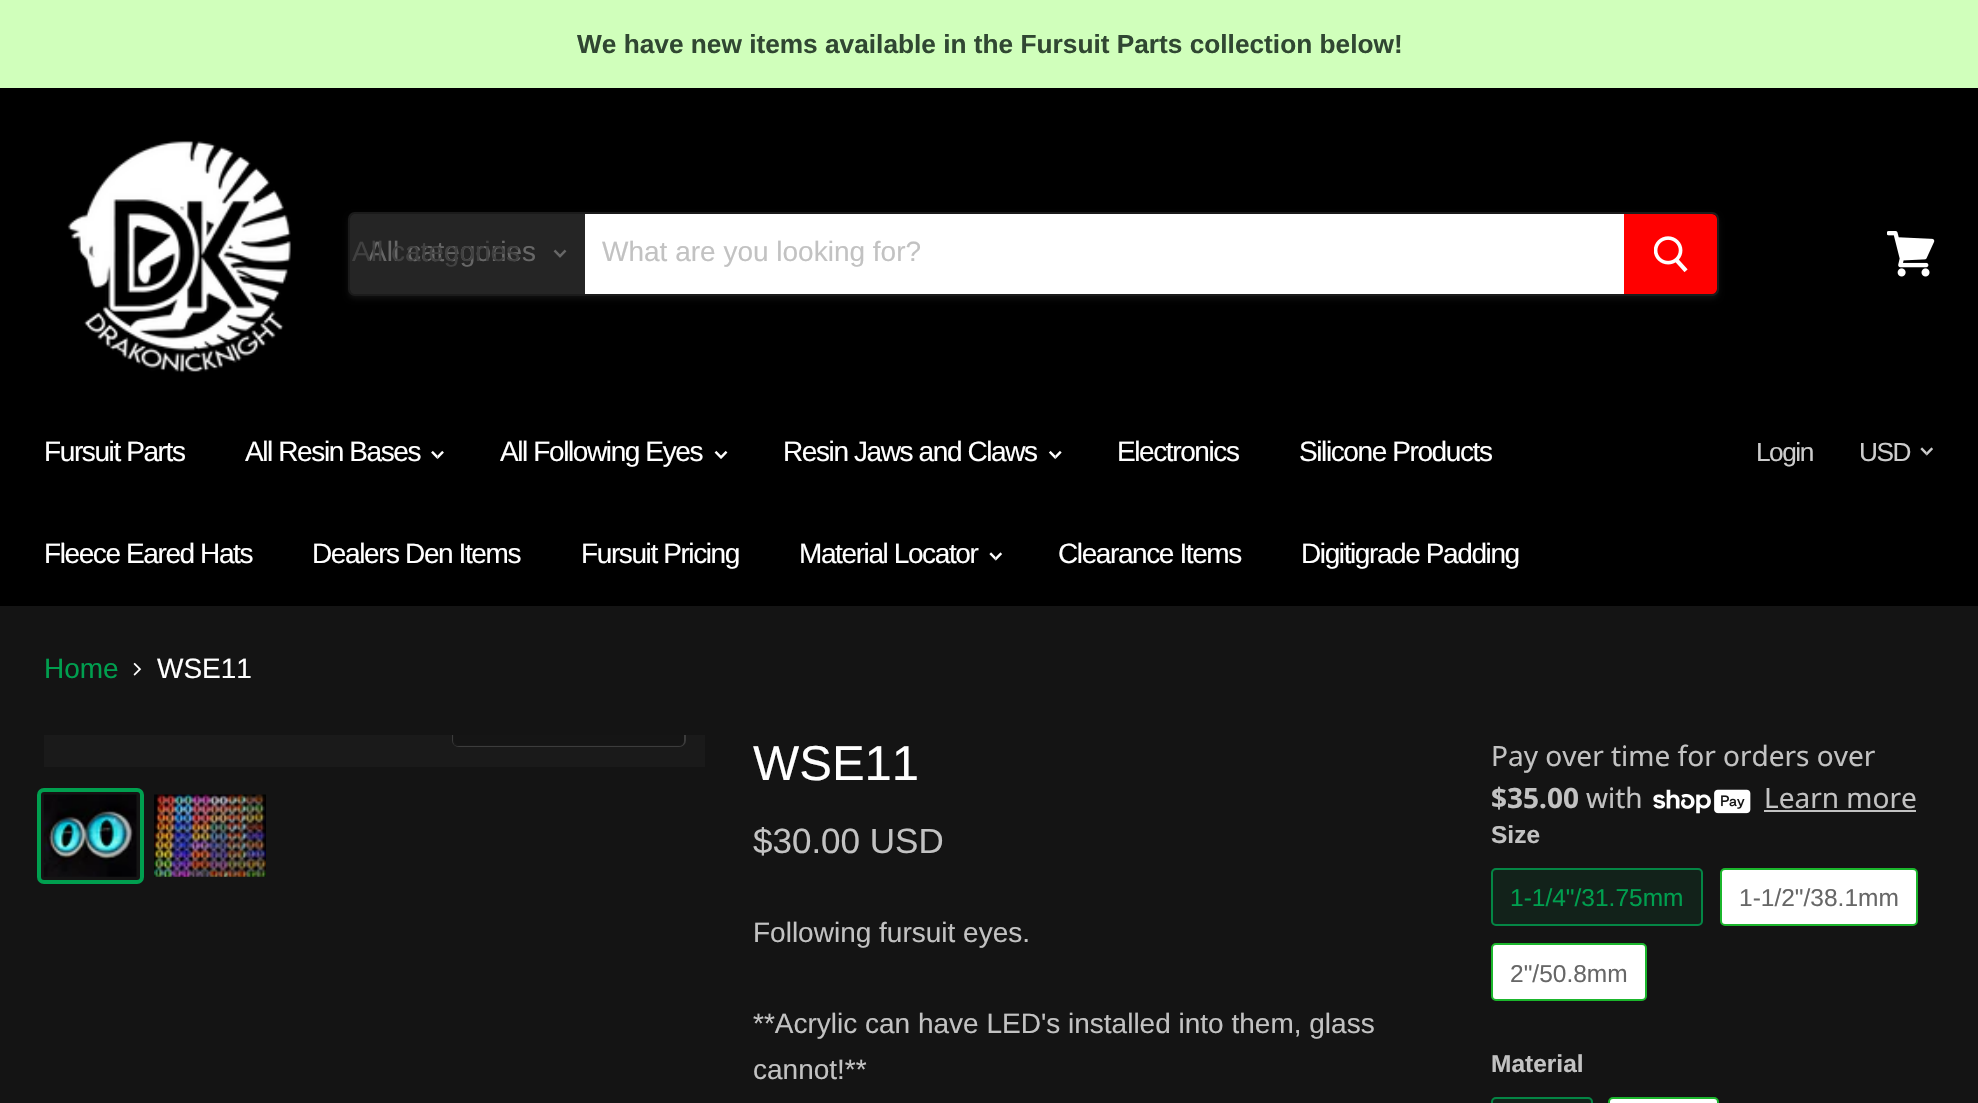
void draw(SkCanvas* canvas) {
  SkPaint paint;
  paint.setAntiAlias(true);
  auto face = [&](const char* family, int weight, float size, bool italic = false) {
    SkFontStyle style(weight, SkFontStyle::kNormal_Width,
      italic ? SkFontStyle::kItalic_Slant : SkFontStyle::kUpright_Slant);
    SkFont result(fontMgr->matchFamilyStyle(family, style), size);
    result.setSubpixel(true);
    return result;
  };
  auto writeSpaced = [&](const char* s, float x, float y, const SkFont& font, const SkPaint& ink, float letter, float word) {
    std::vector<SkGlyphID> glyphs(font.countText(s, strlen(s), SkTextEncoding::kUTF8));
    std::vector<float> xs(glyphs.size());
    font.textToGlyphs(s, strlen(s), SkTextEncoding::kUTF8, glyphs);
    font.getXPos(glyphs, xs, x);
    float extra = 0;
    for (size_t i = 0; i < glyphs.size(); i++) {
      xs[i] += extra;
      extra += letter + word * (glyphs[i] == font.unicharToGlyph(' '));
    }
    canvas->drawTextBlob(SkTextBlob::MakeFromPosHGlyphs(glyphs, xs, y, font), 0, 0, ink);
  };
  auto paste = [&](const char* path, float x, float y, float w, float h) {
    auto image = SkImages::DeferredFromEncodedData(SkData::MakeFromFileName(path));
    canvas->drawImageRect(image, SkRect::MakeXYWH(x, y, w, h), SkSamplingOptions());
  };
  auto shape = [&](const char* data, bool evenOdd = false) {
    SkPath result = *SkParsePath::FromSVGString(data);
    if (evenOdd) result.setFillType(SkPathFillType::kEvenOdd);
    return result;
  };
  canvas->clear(0xff141414);
  paint.setColor(0xffd0ffbb);
  canvas->drawRect(SkRect::MakeXYWH(0, 0, 1978, 88), paint);
  paint.setColor(0xff000000);
  canvas->drawRect(SkRect::MakeXYWH(0, 88, 1978, 518), paint);
  paste("img/1.png", 67, 141, 224, 232);
  canvas->save();
  canvas->clipPath(shape("M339 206H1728V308H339ZM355 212H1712C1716 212 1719 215 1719 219V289C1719 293 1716 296 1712 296H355C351 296 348 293 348 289V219C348 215 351 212 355 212Z", true), true);
  paint.setColor(0x1c898989);
  paint.setMaskFilter(SkMaskFilter::MakeBlur(kNormal_SkBlurStyle, 2.5f));
  canvas->drawRoundRect(SkRect::MakeXYWH(348, 215, 1371, 84), 7, 7, paint);
  paint.setMaskFilter(nullptr);
  canvas->restore();
  paint.setStroke(true);
  paint.setStrokeWidth(2);
  paint.setColor(0x33898989);
  canvas->drawRoundRect(SkRect::MakeXYWH(349, 213, 1369, 82), 6, 6, paint);
  paint.setStroke(false);
  paint.setColor(0xff252525);
  canvas->drawPath(shape("M355 214H585V294H355C352 294 350 292 350 289V219C350 216 352 214 355 214Z"), paint);
  paste("img/2.png", 553, 249, 14, 9);
  paint.setColor(0xffffffff);
  canvas->drawRect(SkRect::MakeXYWH(585, 214, 1039, 80), paint);
  paint.setColor(0xffff0000);
  canvas->drawPath(shape("M1625 215H1712C1714 215 1716 217 1716 219V289C1716 291 1714 293 1712 293H1625Z"), paint);
  paint.setStroke(true);
  canvas->drawPath(shape("M1625 215H1712C1714 215 1716 217 1716 219V289C1716 291 1714 293 1712 293H1625Z"), paint);
  paste("img/3.png", 1654, 236, 34, 37);
  paste("img/4.png", 1887, 231, 48, 46);
  paste("img/5.png", 431, 450, 13, 10);
  paste("img/6.png", 714, 450, 14, 9);
  paste("img/7.png", 1048, 450, 14, 10);
  paste("img/8.png", 989, 552, 14, 9);
  paste("img/9.png", 1920, 447, 13, 9);
  paste("img/10.png", 133, 662, 9, 14);
  paint.setStroke(false);
  paint.setColor(0xff1a1a1a);
  canvas->drawRect(SkRect::MakeXYWH(44, 735, 661, 32), paint);
  canvas->save();
  canvas->clipRect(SkRect::MakeXYWH(44, 735, 661, 32));
  paint.setStroke(true);
  paint.setColor(0xff3c3c3c);
  canvas->drawRoundRect(SkRect::MakeXYWH(453, 696, 232, 50), 6, 6, paint);
  canvas->restore();
  paint.setStroke(false);
  paint.setColor(0xe6141414);
  canvas->drawPath(shape("M453 735H684V741C684 744 682 746 679 746H458C455 746 453 744 453 741Z"), paint);
  paint.setStroke(true);
  paint.setStrokeWidth(4);
  paint.setColor(0xff009f4f);
  canvas->drawRoundRect(SkRect::MakeXYWH(39, 790, 103, 92), 5, 5, paint);
  paste("img/11.png", 43, 794, 94, 83);
  paste("img/12.png", 154, 794, 112, 83);
  paste("img/13.png", 1653, 789, 98, 25);
  paint.setStroke(false);
  paint.setColor(0xffc2c2c2);
  canvas->drawRect(SkRect::MakeXYWH(1764, 810, 152, 2), paint);
  paint.setColor(0xff12221a);
  canvas->drawRoundRect(SkRect::MakeXYWH(1491, 868, 212, 58), 5, 5, paint);
  paint.setStroke(true);
  paint.setStrokeWidth(2);
  paint.setColor(0xcc009f4f);
  canvas->drawRoundRect(SkRect::MakeXYWH(1492, 869, 210, 56), 4, 4, paint);
  paint.setStroke(false);
  paint.setColor(0xffffffff);
  canvas->drawRoundRect(SkRect::MakeXYWH(1721, 869, 196, 56), 4, 4, paint);
  paint.setStroke(true);
  paint.setColor(0xff1bb62c);
  canvas->drawRoundRect(SkRect::MakeXYWH(1721, 869, 196, 56), 4, 4, paint);
  paint.setStroke(false);
  paint.setColor(0xffffffff);
  canvas->drawRoundRect(SkRect::MakeXYWH(1492, 944, 154, 56), 4, 4, paint);
  paint.setStroke(true);
  paint.setColor(0xff1bb62c);
  canvas->drawRoundRect(SkRect::MakeXYWH(1492, 944, 154, 56), 4, 4, paint);
  paint.setStroke(false);
  paint.setColor(0xff12221a);
  canvas->drawRoundRect(SkRect::MakeXYWH(1491, 1097, 102, 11), 5, 5, paint);
  paint.setStroke(true);
  paint.setColor(0xcc009f4f);
  canvas->drawRoundRect(SkRect::MakeXYWH(1492, 1098, 100, 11), 4, 4, paint);
  paint.setStroke(false);
  paint.setColor(0xffffffff);
  canvas->drawRoundRect(SkRect::MakeXYWH(1609, 1098, 109, 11), 4, 4, paint);
  paint.setStroke(true);
  paint.setColor(0xff1bb62c);
  canvas->drawRoundRect(SkRect::MakeXYWH(1609, 1098, 109, 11), 4, 4, paint);
  auto f0 = face("Liberation Sans", 700, 26.25f);
  paint.setStroke(false);
  paint.setColor(0xff304732);
  canvas->drawString("We have new items available in the Fursuit Parts collection below!", 577, 53, f0, paint);
  auto f1 = face("Liberation Sans", 400, 28);
  paint.setColor(0xff676767);
  canvas->drawString("All categories", 368, 261, f1, paint);
  paint.setColor(0xff414141);
  canvas->drawString("All categories", 352, 261, f1, paint);
  paint.setColor(0xffc2c2c2);
  canvas->drawString("What are you looking for?", 602, 261, f1, paint);
  paint.setColor(0xffffffff);
  {
    const struct { const char* s; float x, y; } items[] = {
      {"Fursuit Parts", 44, 461},
      {"All Resin Bases", 245, 461},
      {"All Following Eyes", 500, 461},
      {"Resin Jaws and Claws", 783, 461},
      {"Electronics", 1117, 461},
      {"Silicone Products", 1299, 461},
      {"Fleece Eared Hats", 44, 563},
      {"Dealers Den Items", 312, 563},
      {"Fursuit Pricing", 581, 563},
      {"Material Locator", 799, 563},
      {"Clearance Items", 1058, 563},
      {"Digitigrade Padding", 1301, 563},
    };
    for (auto [s, x, y] : items) {
      writeSpaced(s, x, y, f1, paint, -1.4f, 0);
    }
  }
  auto f2 = face("Liberation Sans", 400, 26.25f);
  paint.setColor(0xffcccccc);
  writeSpaced("Login", 1756, 461, f2, paint, -1.5f, 0);
  writeSpaced("USD", 1859, 461, f2, paint, -1.5f, 0);
  paint.setColor(0xff009f4f);
  canvas->drawString("Home", 44, 678, f1, paint);
  paint.setColor(0xffffffff);
  canvas->drawString("WSE11", 157, 678, f1, paint);
  auto f3 = face("Liberation Sans", 400, 49);
  canvas->drawString("WSE11", 753, 780, f3, paint);
  auto f4 = face("Liberation Sans", 400, 35);
  paint.setColor(0xffc2c2c2);
  canvas->drawString("$30.00 USD", 753, 853, f4, paint);
  {
    const struct { const char* s; float x, y; } items[] = {
      {"Following fursuit eyes.", 753, 942},
      {"**Acrylic can have LED's installed into them, glass", 753, 1033},
      {"cannot!**", 753, 1079},
    };
    for (auto [s, x, y] : items) {
      canvas->drawString(s, x, y, f1, paint);
    }
  }
  auto f5 = face("Noto Sans", 400, 28);
  canvas->drawString("Pay over time for orders over", 1491, 766, f5, paint);
  auto f6 = face("Noto Sans", 700, 28);
  canvas->drawString("$35.00", 1491, 808, f6, paint);
  canvas->drawString("with", 1586, 808, f5, paint);
  canvas->drawString("Learn more", 1764, 808, f5, paint);
  auto f7 = face("Liberation Sans", 700, 24.5f);
  canvas->drawString("Size", 1491, 843, f7, paint);
  auto f8 = face("Liberation Sans", 400, 24.5f);
  paint.setColor(0xff009f4f);
  canvas->drawString("1-1/4\"/31.75mm", 1510, 906, f8, paint);
  paint.setColor(0xff676767);
  canvas->drawString("1-1/2\"/38.1mm", 1739, 906, f8, paint);
  canvas->drawString("2\"/50.8mm", 1510, 982, f8, paint);
  paint.setColor(0xffc2c2c2);
  canvas->drawString("Material", 1491, 1072, f7, paint);
}
